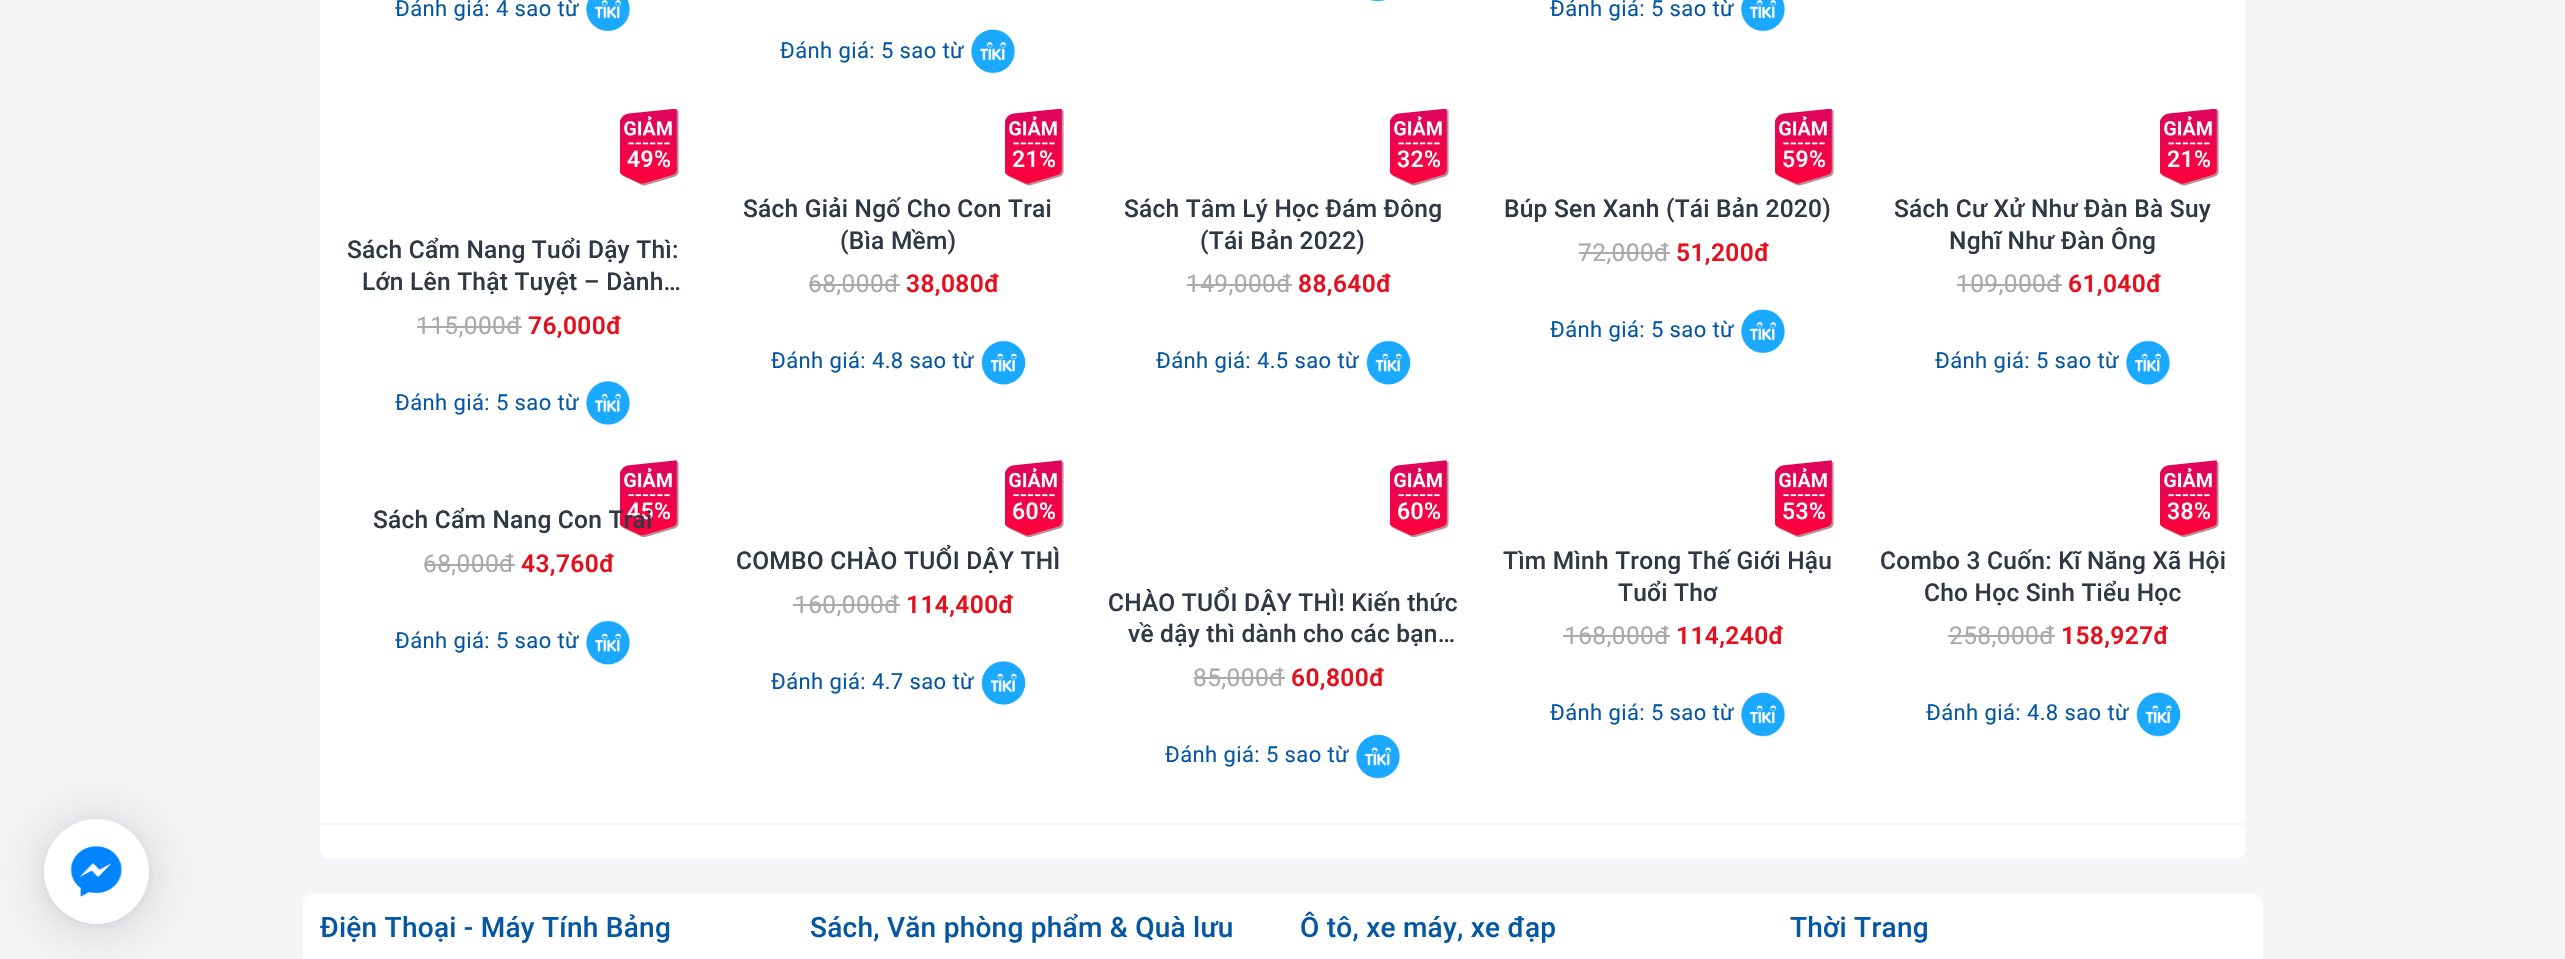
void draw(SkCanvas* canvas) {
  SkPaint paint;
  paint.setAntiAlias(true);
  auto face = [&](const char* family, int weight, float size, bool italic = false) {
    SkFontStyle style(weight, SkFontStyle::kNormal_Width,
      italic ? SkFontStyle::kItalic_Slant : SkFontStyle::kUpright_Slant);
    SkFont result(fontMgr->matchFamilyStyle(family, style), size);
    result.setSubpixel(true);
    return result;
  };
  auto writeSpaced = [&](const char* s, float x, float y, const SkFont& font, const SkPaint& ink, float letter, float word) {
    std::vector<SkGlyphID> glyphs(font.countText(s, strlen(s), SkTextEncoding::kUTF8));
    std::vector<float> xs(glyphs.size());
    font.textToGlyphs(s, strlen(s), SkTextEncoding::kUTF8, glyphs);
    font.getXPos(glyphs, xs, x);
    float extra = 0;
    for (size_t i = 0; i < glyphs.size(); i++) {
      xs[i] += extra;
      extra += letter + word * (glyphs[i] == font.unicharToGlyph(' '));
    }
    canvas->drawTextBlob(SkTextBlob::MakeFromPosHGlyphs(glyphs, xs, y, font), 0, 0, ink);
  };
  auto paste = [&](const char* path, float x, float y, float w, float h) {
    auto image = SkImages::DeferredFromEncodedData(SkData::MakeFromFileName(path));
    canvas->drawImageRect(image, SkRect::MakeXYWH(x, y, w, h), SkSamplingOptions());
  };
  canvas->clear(0xfff3f5f7);
  paint.setColor(0xffffffff);
  canvas->drawRoundRect(SkRect::MakeXYWH(320, -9, 1925, 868), 9, 9, paint);
  paint.setColor(0xfff5f5f5);
  canvas->drawRect(SkRect::MakeXYWH(320, 823, 1925, 2), paint);
  paste("img/1.png", 586, 0, 44, 31);
  paste("img/2.png", 1371, 0, 14, 2);
  paste("img/3.png", 1741, 0, 44, 31);
  paste("img/4.png", 971, 29, 44, 44);
  paste("img/5.png", 620, 109, 59, 77);
  paint.setColor(0xffaaaaaa);
  canvas->drawRect(SkRect::MakeXYWH(417, 326, 105, 2), paint);
  paste("img/6.png", 586, 381, 44, 44);
  paste("img/5.png", 1005, 109, 59, 77);
  canvas->drawRect(SkRect::MakeXYWH(809, 284, 91, 2), paint);
  paste("img/7.png", 981, 340, 45, 45);
  paste("img/5.png", 1390, 109, 59, 77);
  canvas->drawRect(SkRect::MakeXYWH(1187, 284, 105, 2), paint);
  paste("img/7.png", 1366, 340, 45, 45);
  paste("img/5.png", 1775, 109, 59, 77);
  canvas->drawRect(SkRect::MakeXYWH(1579, 252, 91, 2), paint);
  paste("img/8.png", 1741, 309, 44, 44);
  paste("img/5.png", 2160, 109, 59, 77);
  canvas->drawRect(SkRect::MakeXYWH(1957, 284, 105, 2), paint);
  paste("img/9.png", 2126, 340, 44, 45);
  paste("img/10.png", 620, 460, 59, 77);
  canvas->drawRect(SkRect::MakeXYWH(424, 564, 91, 2), paint);
  paste("img/11.png", 586, 620, 44, 45);
  paste("img/10.png", 1005, 460, 59, 77);
  canvas->drawRect(SkRect::MakeXYWH(793, 604, 107, 2), paint);
  paste("img/12.png", 981, 661, 45, 44);
  paste("img/10.png", 1390, 460, 59, 77);
  canvas->drawRect(SkRect::MakeXYWH(1194, 677, 91, 2), paint);
  paste("img/13.png", 1356, 734, 44, 45);
  paste("img/10.png", 1775, 460, 59, 77);
  canvas->drawRect(SkRect::MakeXYWH(1563, 635, 107, 2), paint);
  paste("img/13.png", 1741, 692, 44, 45);
  paste("img/10.png", 2160, 460, 59, 77);
  canvas->drawRect(SkRect::MakeXYWH(1948, 635, 107, 2), paint);
  paste("img/14.png", 2136, 692, 45, 45);
  paint.setColor(0x29000000);
  paint.setMaskFilter(SkMaskFilter::MakeBlur(kNormal_SkBlurStyle, 28));
  canvas->drawRoundRect(SkRect::MakeXYWH(44, 823, 105, 105), 52.5f, 52.5f, paint);
  paint.setMaskFilter(nullptr);
  paint.setColor(0x0f000000);
  paint.setMaskFilter(SkMaskFilter::MakeBlur(kNormal_SkBlurStyle, 5));
  canvas->drawRoundRect(SkRect::MakeXYWH(44, 821, 105, 105), 52.5f, 52.5f, paint);
  paint.setMaskFilter(nullptr);
  paint.setColor(0xffffffff);
  canvas->drawCircle(96.5f, 871.5f, 52.5f, paint);
  paste("img/15.png", 70, 846, 52, 51);
  canvas->drawRoundRect(SkRect::MakeXYWH(303, 894, 1960, 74), 9, 9, paint);
  auto f0 = face("Roboto", 400, 22);
  paint.setColor(0xff0657a3);
  {
    const struct { const char* s; float x, y; } items[] = {
      {"Đánh giá: 4 sao từ", 395, 16},
      {"Đánh giá: 5 sao từ", 1550, 16},
      {"Đánh giá: 5 sao từ", 780, 58},
    };
    for (auto [s, x, y] : items) {
      writeSpaced(s, x, y, f0, paint, 0.4f, 0);
    }
  }
  auto f1 = face("Roboto", 500, 23);
  paint.setColor(0xffffffff);
  writeSpaced("49%", 627, 167, f1, paint, 0.4f, 0);
  auto f2 = face("Roboto", 500, 24.5f);
  paint.setColor(0xff303846);
  writeSpaced("Sách Cẩm Nang Tuổi Dậy Thì:", 347, 258, f2, paint, 0.25f, 0);
  writeSpaced("Lớn Lên Thật Tuyệt – Dành…", 362, 290, f2, paint, 0.25f, 0);
  auto f3 = face("Roboto", 400, 24.5f);
  paint.setColor(0xffaaaaaa);
  writeSpaced("115,000đ", 416, 334, f3, paint, 0.4f, 0);
  auto f4 = face("Roboto", 600, 24.5f);
  paint.setColor(0xffe5101d);
  writeSpaced("76,000đ", 528, 334, f4, paint, 0.4f, 0);
  paint.setColor(0xff0657a3);
  writeSpaced("Đánh giá: 5 sao từ", 395, 410, f0, paint, 0.4f, 0);
  paint.setColor(0xffffffff);
  writeSpaced("21%", 1012, 167, f1, paint, 0.4f, 0);
  paint.setColor(0xff303846);
  writeSpaced("Sách Giải Ngố Cho Con Trai", 743, 217, f2, paint, 0.25f, 0);
  writeSpaced("(Bìa Mềm)", 840, 249, f2, paint, 0.25f, 0);
  paint.setColor(0xffaaaaaa);
  writeSpaced("68,000đ", 808, 292, f3, paint, 0.4f, 0);
  paint.setColor(0xffe5101d);
  writeSpaced("38,080đ", 906, 292, f4, paint, 0.4f, 0);
  paint.setColor(0xff0657a3);
  writeSpaced("Đánh giá: 4.8 sao từ", 771, 368, f0, paint, 0.4f, 0);
  paint.setColor(0xffffffff);
  writeSpaced("32%", 1397, 167, f1, paint, 0.4f, 0);
  paint.setColor(0xff303846);
  writeSpaced("Sách Tâm Lý Học Đám Đông", 1124, 217, f2, paint, 0.25f, 0);
  writeSpaced("(Tái Bản 2022)", 1200, 249, f2, paint, 0.25f, 0);
  paint.setColor(0xffaaaaaa);
  writeSpaced("149,000đ", 1186, 292, f3, paint, 0.4f, 0);
  paint.setColor(0xffe5101d);
  writeSpaced("88,640đ", 1298, 292, f4, paint, 0.4f, 0);
  paint.setColor(0xff0657a3);
  writeSpaced("Đánh giá: 4.5 sao từ", 1156, 368, f0, paint, 0.4f, 0);
  paint.setColor(0xffffffff);
  writeSpaced("59%", 1782, 167, f1, paint, 0.4f, 0);
  paint.setColor(0xff303846);
  writeSpaced("Búp Sen Xanh (Tái Bản 2020)", 1504, 217, f2, paint, 0.25f, 0);
  paint.setColor(0xffaaaaaa);
  writeSpaced("72,000đ", 1578, 261, f3, paint, 0.4f, 0);
  paint.setColor(0xffe5101d);
  writeSpaced("51,200đ", 1676, 261, f4, paint, 0.4f, 0);
  paint.setColor(0xff0657a3);
  writeSpaced("Đánh giá: 5 sao từ", 1550, 337, f0, paint, 0.4f, 0);
  paint.setColor(0xffffffff);
  writeSpaced("21%", 2167, 167, f1, paint, 0.4f, 0);
  paint.setColor(0xff303846);
  writeSpaced("Sách Cư Xử Như Đàn Bà Suy", 1894, 217, f2, paint, 0.25f, 0);
  writeSpaced("Nghĩ Như Đàn Ông", 1949, 249, f2, paint, 0.25f, 0);
  paint.setColor(0xffaaaaaa);
  writeSpaced("109,000đ", 1956, 292, f3, paint, 0.4f, 0);
  paint.setColor(0xffe5101d);
  writeSpaced("61,040đ", 2068, 292, f4, paint, 0.4f, 0);
  paint.setColor(0xff0657a3);
  writeSpaced("Đánh giá: 5 sao từ", 1935, 368, f0, paint, 0.4f, 0);
  paint.setColor(0xffffffff);
  writeSpaced("45%", 627, 519, f1, paint, 0.4f, 0);
  paint.setColor(0xff303846);
  writeSpaced("Sách Cẩm Nang Con Trai", 373, 528, f2, paint, 0.25f, 0);
  paint.setColor(0xffaaaaaa);
  writeSpaced("68,000đ", 423, 572, f3, paint, 0.4f, 0);
  paint.setColor(0xffe5101d);
  writeSpaced("43,760đ", 521, 572, f4, paint, 0.4f, 0);
  paint.setColor(0xff0657a3);
  writeSpaced("Đánh giá: 5 sao từ", 395, 648, f0, paint, 0.4f, 0);
  paint.setColor(0xffffffff);
  writeSpaced("60%", 1012, 519, f1, paint, 0.4f, 0);
  paint.setColor(0xff303846);
  writeSpaced("COMBO CHÀO TUỔI DẬY THÌ", 736, 569, f2, paint, 0.25f, 0);
  paint.setColor(0xffaaaaaa);
  writeSpaced("160,000đ", 794, 613, f3, paint, 0.4f, 0);
  paint.setColor(0xffe5101d);
  writeSpaced("114,400đ", 906, 613, f4, paint, 0.4f, 0);
  paint.setColor(0xff0657a3);
  writeSpaced("Đánh giá: 4.7 sao từ", 771, 689, f0, paint, 0.4f, 0);
  paint.setColor(0xffffffff);
  writeSpaced("60%", 1397, 519, f1, paint, 0.4f, 0);
  paint.setColor(0xff303846);
  writeSpaced("CHÀO TUỔI DẬY THÌ! Kiến thức", 1108, 611, f2, paint, 0.25f, 0);
  writeSpaced("về dậy thì dành cho các bạn…", 1128, 642, f2, paint, 0.25f, 0);
  paint.setColor(0xffaaaaaa);
  writeSpaced("85,000đ", 1193, 686, f3, paint, 0.4f, 0);
  paint.setColor(0xffe5101d);
  writeSpaced("60,800đ", 1291, 686, f4, paint, 0.4f, 0);
  paint.setColor(0xff0657a3);
  writeSpaced("Đánh giá: 5 sao từ", 1165, 762, f0, paint, 0.4f, 0);
  paint.setColor(0xffffffff);
  writeSpaced("53%", 1782, 519, f1, paint, 0.4f, 0);
  paint.setColor(0xff303846);
  writeSpaced("Tìm Mình Trong Thế Giới Hậu", 1503, 569, f2, paint, 0.25f, 0);
  writeSpaced("Tuổi Thơ", 1618, 601, f2, paint, 0.25f, 0);
  paint.setColor(0xffaaaaaa);
  writeSpaced("168,000đ", 1564, 644, f3, paint, 0.4f, 0);
  paint.setColor(0xffe5101d);
  writeSpaced("114,240đ", 1676, 644, f4, paint, 0.4f, 0);
  paint.setColor(0xff0657a3);
  writeSpaced("Đánh giá: 5 sao từ", 1550, 720, f0, paint, 0.4f, 0);
  paint.setColor(0xffffffff);
  writeSpaced("38%", 2167, 519, f1, paint, 0.4f, 0);
  paint.setColor(0xff303846);
  writeSpaced("Combo 3 Cuốn: Kĩ Năng Xã Hội", 1880, 569, f2, paint, 0.25f, 0);
  writeSpaced("Cho Học Sinh Tiểu Học", 1924, 601, f2, paint, 0.25f, 0);
  paint.setColor(0xffaaaaaa);
  writeSpaced("258,000đ", 1949, 644, f3, paint, 0.4f, 0);
  paint.setColor(0xffe5101d);
  writeSpaced("158,927đ", 2061, 644, f4, paint, 0.4f, 0);
  paint.setColor(0xff0657a3);
  writeSpaced("Đánh giá: 4.8 sao từ", 1926, 720, f0, paint, 0.4f, 0);
  auto f5 = face("Roboto", 500, 28);
  {
    const struct { const char* s; float x, y; } items[] = {
      {"Điện Thoại - Máy Tính Bảng", 320, 937},
      {"Sách, Văn phòng phẩm & Quà lưu", 810, 937},
      {"Ô tô, xe máy, xe đạp", 1300, 937},
      {"Thời Trang", 1790, 937},
    };
    for (auto [s, x, y] : items) {
      writeSpaced(s, x, y, f5, paint, 0.25f, 0);
    }
  }
}
